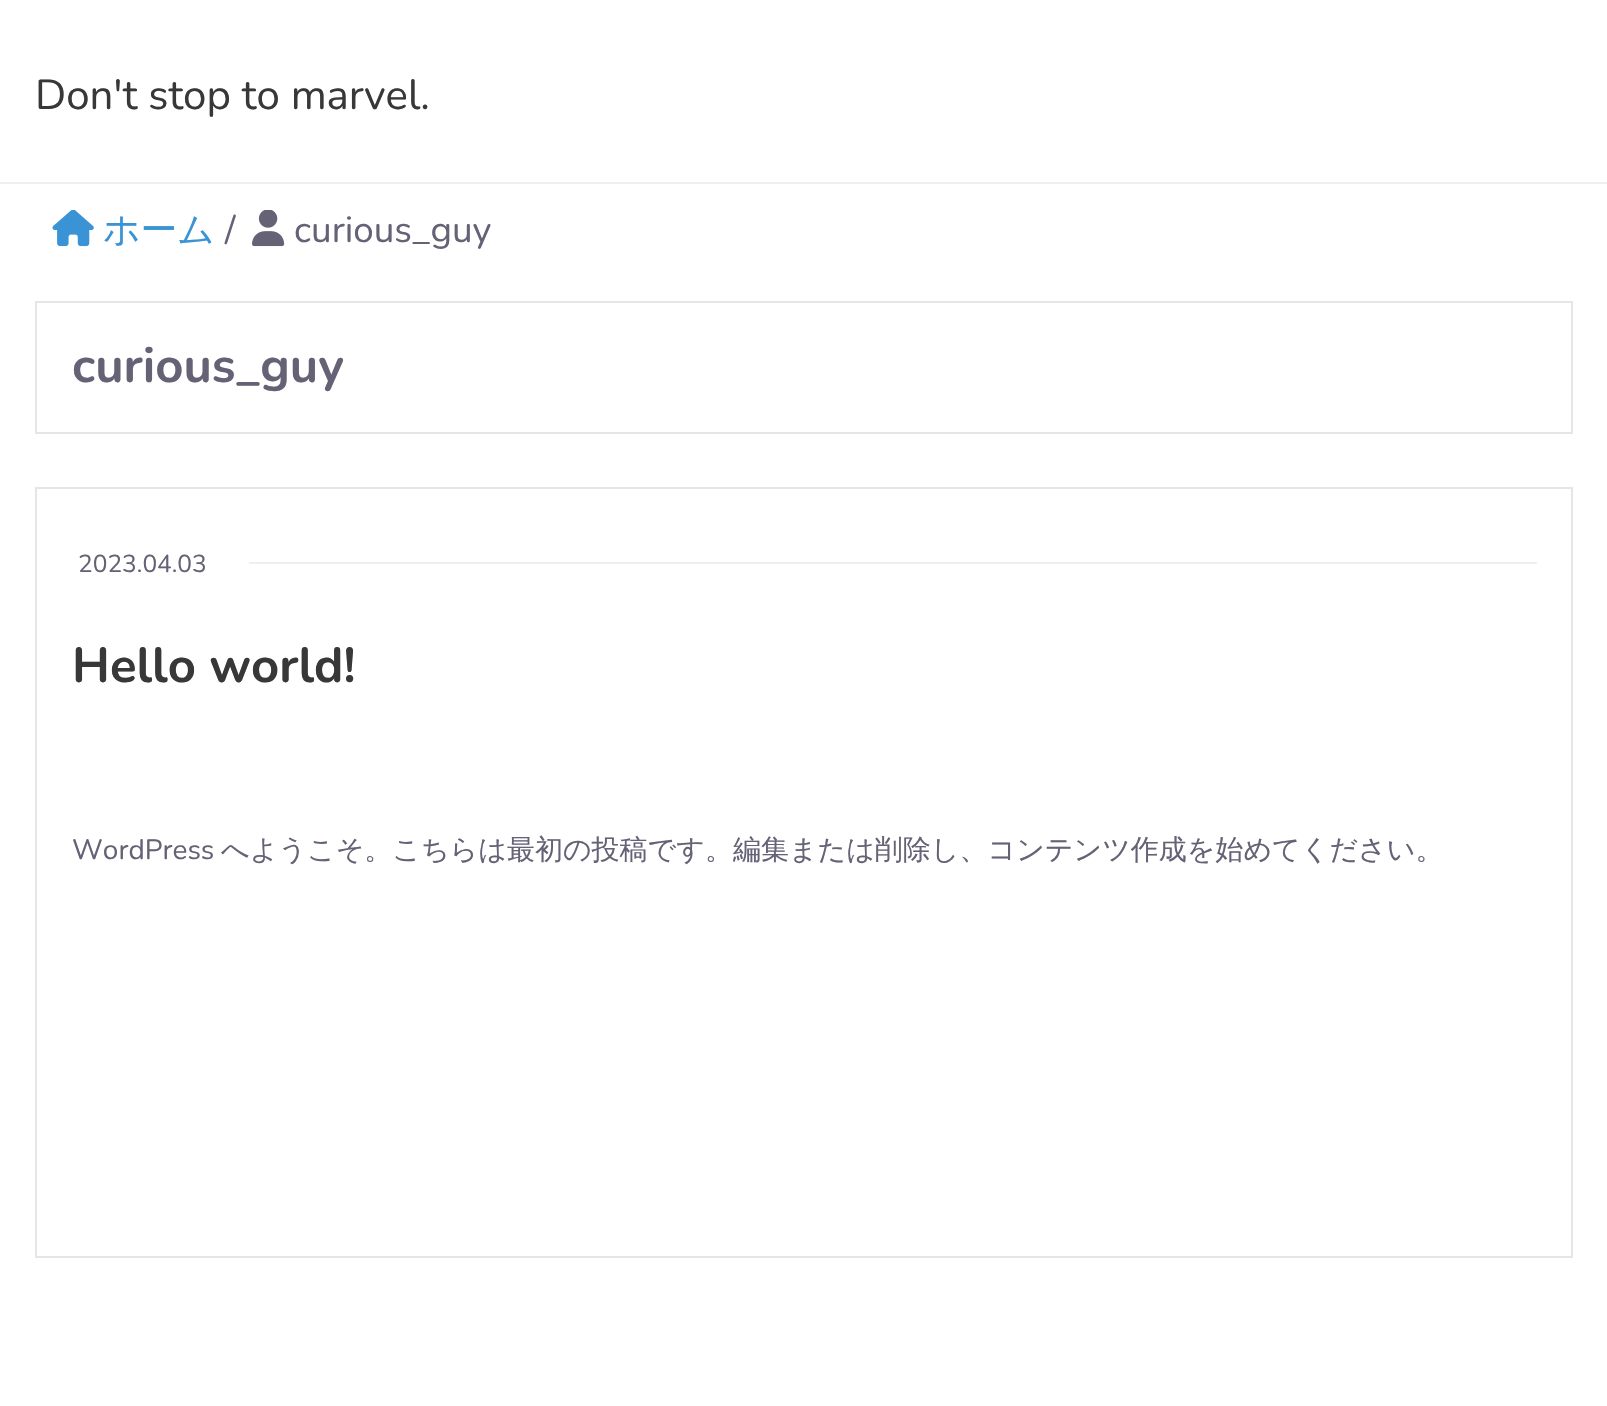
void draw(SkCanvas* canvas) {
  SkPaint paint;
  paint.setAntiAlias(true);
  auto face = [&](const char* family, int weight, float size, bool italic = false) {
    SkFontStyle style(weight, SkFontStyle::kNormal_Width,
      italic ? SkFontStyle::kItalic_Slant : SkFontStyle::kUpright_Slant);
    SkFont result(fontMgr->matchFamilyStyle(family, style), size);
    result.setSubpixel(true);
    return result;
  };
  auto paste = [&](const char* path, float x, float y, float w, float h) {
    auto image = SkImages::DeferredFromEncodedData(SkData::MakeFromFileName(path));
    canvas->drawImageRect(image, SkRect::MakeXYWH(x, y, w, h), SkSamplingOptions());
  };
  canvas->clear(0xffffffff);
  paint.setColor(0xffefefef);
  canvas->drawRect(SkRect::MakeXYWH(0, 182, 1607, 2), paint);
  paste("img/1.png", 52, 210, 42, 37);
  paste("img/2.png", 252, 210, 33, 37);
  paint.setStroke(true);
  paint.setStrokeWidth(2);
  paint.setColor(0xffe5e5e5);
  canvas->drawRect(SkRect::MakeXYWH(36, 302, 1536, 131), paint);
  canvas->drawRect(SkRect::MakeXYWH(36, 488, 1536, 769), paint);
  paint.setStroke(false);
  paint.setColor(0xffefefef);
  canvas->drawRect(SkRect::MakeXYWH(249, 562, 1288, 2), paint);
  auto f0 = face("Nunito", 400, 42);
  paint.setColor(0xff383838);
  canvas->drawString("Don't stop to marvel.", 35, 109, f0, paint);
  auto f1 = face("WenQuanYi Zen Hei", 500, 36.75f);
  paint.setColor(0xff3993d5);
  canvas->drawString("ホーム", 103, 242, f1, paint);
  auto f2 = face("Nunito", 400, 36.75f);
  paint.setColor(0xff666276);
  canvas->drawString("/", 225, 242, f2, paint);
  canvas->drawString("curious_guy", 294, 242, f2, paint);
  auto f3 = face("Nunito", 700, 49);
  canvas->drawString("curious_guy", 72, 382, f3, paint);
  auto f4 = face("Nunito", 400, 24.5f);
  canvas->drawString("2023.04.03", 78, 572, f4, paint);
  paint.setColor(0xff383838);
  canvas->drawString("Hello world!", 72, 682, f3, paint);
  auto f5 = face("Nunito", 400, 28);
  paint.setColor(0xff666276);
  canvas->drawString("WordPress", 72, 859, f5, paint);
  auto f6 = face("WenQuanYi Zen Hei", 500, 28);
  canvas->drawString("へようこそ。こちらは最初の投稿です。編集または削除し、コンテンツ作成を始めてください。", 221, 859, f6, paint);
}
